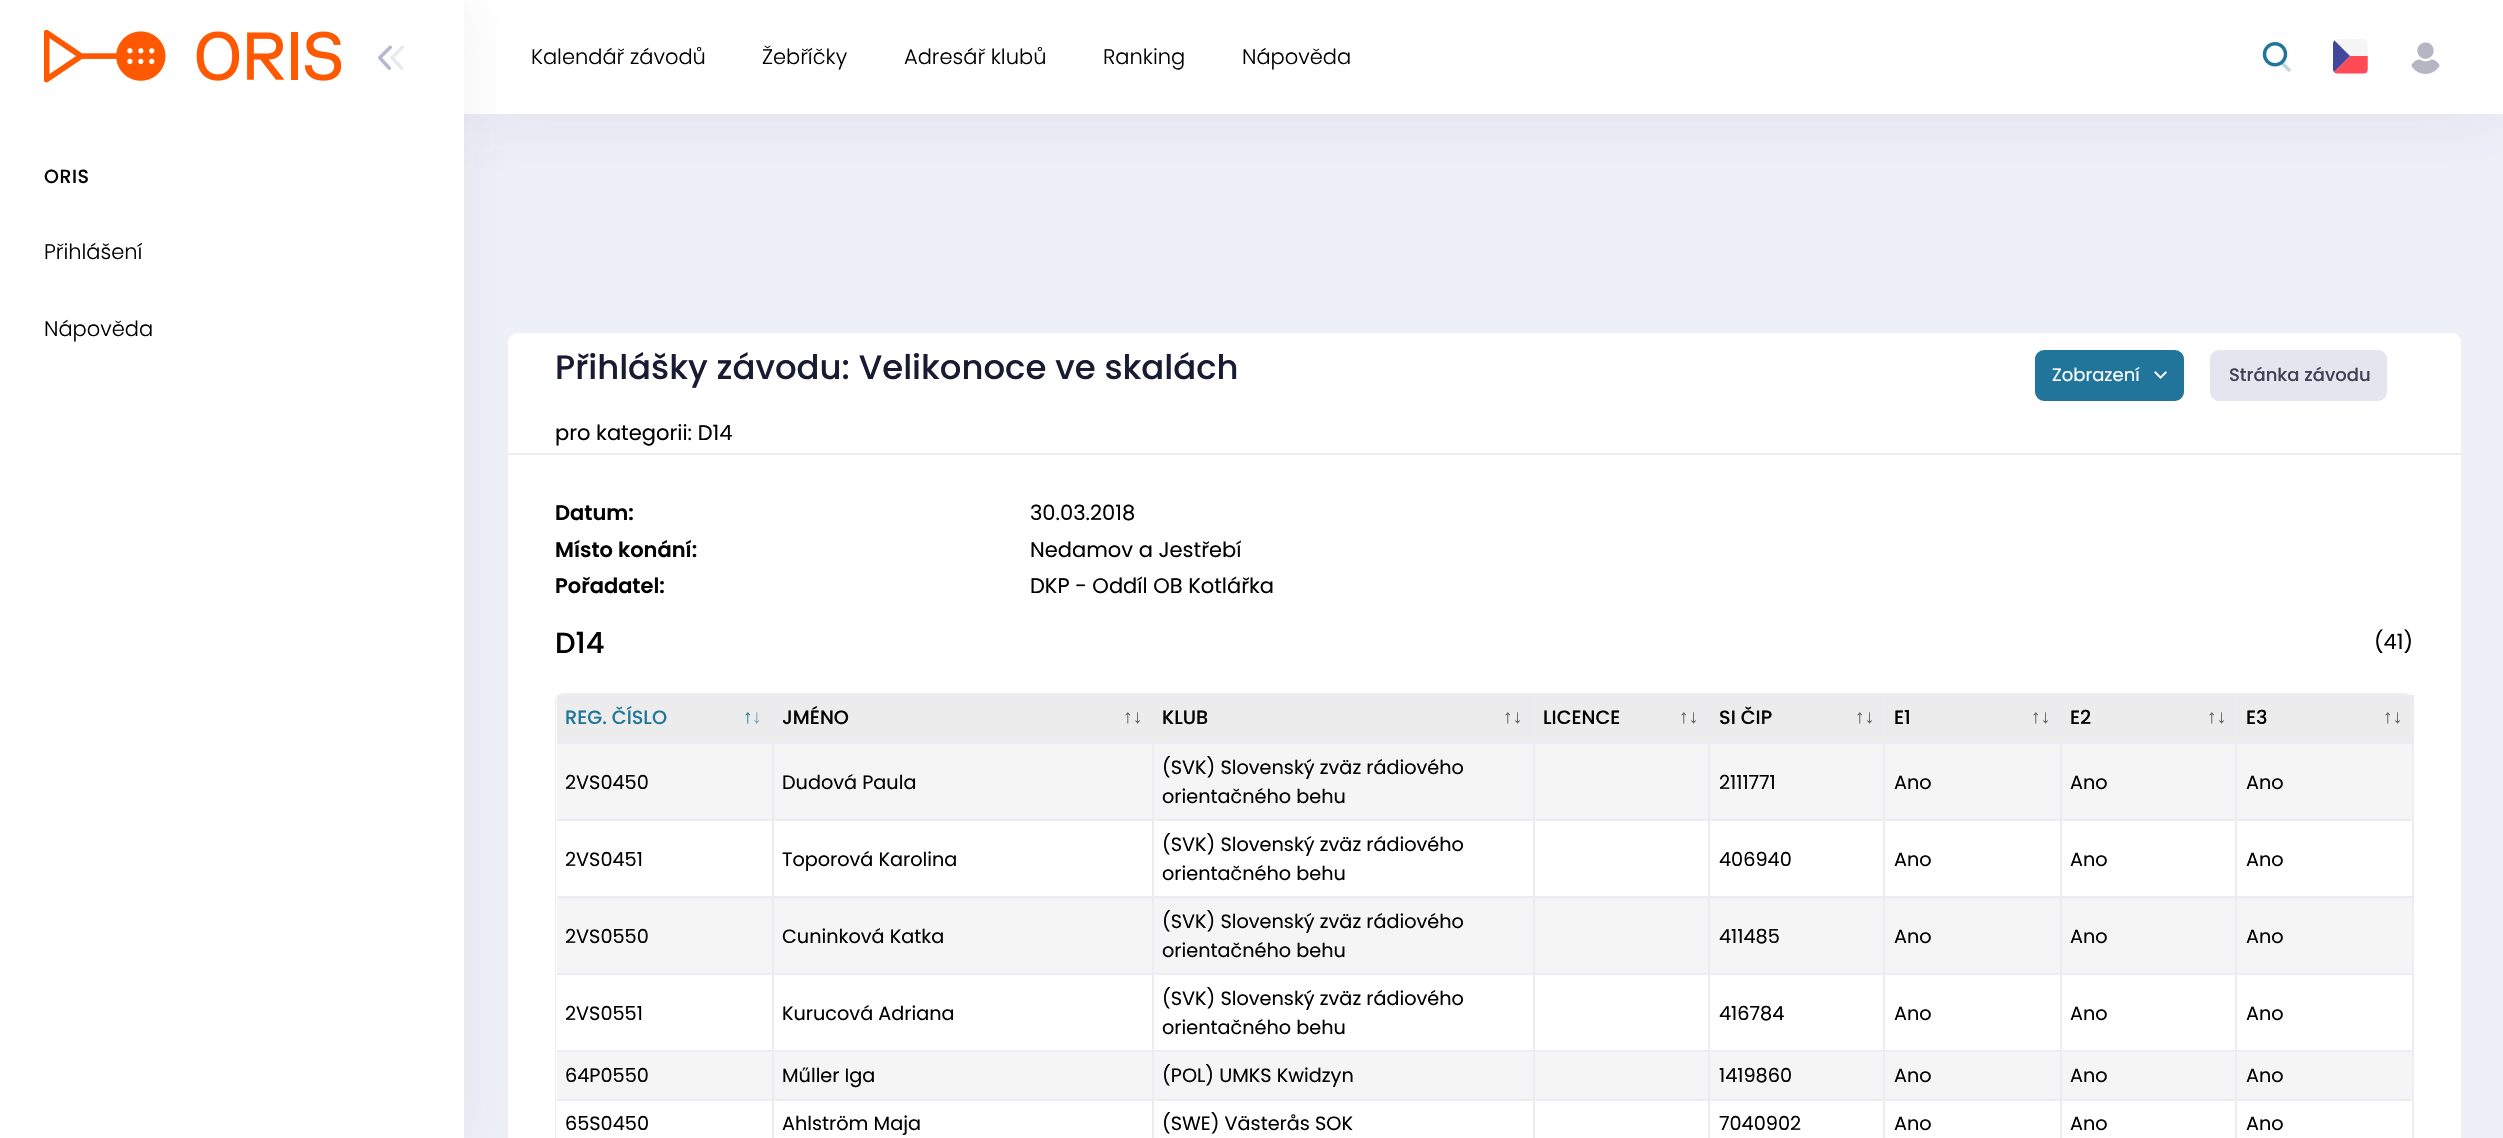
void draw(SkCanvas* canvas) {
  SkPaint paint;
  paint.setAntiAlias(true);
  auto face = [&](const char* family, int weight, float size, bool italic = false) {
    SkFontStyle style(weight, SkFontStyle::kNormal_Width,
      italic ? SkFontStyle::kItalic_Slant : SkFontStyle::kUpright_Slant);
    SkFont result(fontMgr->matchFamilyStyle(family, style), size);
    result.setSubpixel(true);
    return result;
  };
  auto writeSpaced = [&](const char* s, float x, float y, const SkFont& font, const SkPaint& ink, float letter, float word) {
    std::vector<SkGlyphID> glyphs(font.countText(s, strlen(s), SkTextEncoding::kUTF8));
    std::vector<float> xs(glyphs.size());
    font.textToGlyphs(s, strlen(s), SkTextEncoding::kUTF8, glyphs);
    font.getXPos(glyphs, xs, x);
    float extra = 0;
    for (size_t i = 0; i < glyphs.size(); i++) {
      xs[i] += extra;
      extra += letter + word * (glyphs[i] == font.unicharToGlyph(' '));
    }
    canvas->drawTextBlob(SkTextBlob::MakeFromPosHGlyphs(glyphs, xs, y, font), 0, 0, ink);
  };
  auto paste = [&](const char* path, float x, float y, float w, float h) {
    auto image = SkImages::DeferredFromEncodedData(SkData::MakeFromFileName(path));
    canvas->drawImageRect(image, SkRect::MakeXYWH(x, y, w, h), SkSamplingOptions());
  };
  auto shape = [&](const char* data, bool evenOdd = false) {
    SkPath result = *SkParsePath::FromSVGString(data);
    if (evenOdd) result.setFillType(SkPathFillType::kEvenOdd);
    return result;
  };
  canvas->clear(0xffeef0f8);
  paint.setColor(0x1a523f69);
  paint.setMaskFilter(SkMaskFilter::MakeBlur(kNormal_SkBlurStyle, 35));
  canvas->drawRect(SkRect::MakeXYWH(464, 0, 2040, 114), paint);
  paint.setMaskFilter(nullptr);
  paint.setColor(0xffffffff);
  canvas->drawRect(SkRect::MakeXYWH(464, 0, 2039, 114), paint);
  canvas->drawRoundRect(SkRect::MakeXYWH(508, 333, 1953, 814), 9, 9, paint);
  paint.setColor(0xffebedf3);
  canvas->drawRect(SkRect::MakeXYWH(508, 453, 1953, 2), paint);
  paint.setColor(0x14523f69);
  paint.setMaskFilter(SkMaskFilter::MakeBlur(kNormal_SkBlurStyle, 24.5f));
  canvas->drawRect(SkRect::MakeXYWH(0, 0, 464, 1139), paint);
  paint.setMaskFilter(nullptr);
  paint.setColor(0xffffffff);
  canvas->drawRect(SkRect::MakeXYWH(0, 0, 464, 1138), paint);
  paste("img/1.png", 44, 30, 297, 53);
  paste("img/2.png", 378, 45, 27, 25);
  paste("img/3.png", 2262, 42, 29, 30);
  paste("img/4.png", 2333, 39, 35, 35);
  paste("img/5.png", 2411, 42, 29, 32);
  paint.setColor(0xff21759b);
  canvas->drawRoundRect(SkRect::MakeXYWH(2036, 351, 147, 49), 8, 8, paint);
  paint.setStroke(true);
  paint.setStrokeWidth(2);
  canvas->drawRoundRect(SkRect::MakeXYWH(2036, 351, 147, 49), 8, 8, paint);
  paste("img/6.png", 2154, 371, 13, 8);
  paint.setStroke(false);
  paint.setColor(0xffe4e6ef);
  canvas->drawRoundRect(SkRect::MakeXYWH(2211, 351, 175, 49), 8, 8, paint);
  paint.setStroke(true);
  canvas->drawRoundRect(SkRect::MakeXYWH(2211, 351, 175, 49), 8, 8, paint);
  paint.setStroke(false);
  paint.setColor(0xffebedf3);
  canvas->drawPath(shape("M564 693H2404C2409 693 2413 697 2413 702V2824C2413 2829 2409 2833 2404 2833H564C559 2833 555 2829 555 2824V702C555 697 559 693 564 693ZM564 695H2404C2409 695 2413 698 2413 702V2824C2413 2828 2409 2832 2404 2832H564C560 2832 556 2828 556 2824V702C556 698 560 695 564 695Z", true), paint);
  {
    const struct { float x, y, w, h; SkColor color; } items[] = {
      {557, 695, 215, 45, 0xffececec},
      {557, 744, 1855, 75, 0xfff5f5f5},
      {557, 742, 596, 2, 0xffebedf3},
      {772, 695, 2, 124, 0xffebedf3},
      {557, 740, 217, 2, 0xffebedf3},
      {774, 695, 378, 45, 0xffececec},
      {1152, 695, 1, 47, 0xffebedf3},
      {1152, 742, 2, 77, 0xffebedf3},
      {1153, 742, 1260, 2, 0xffebedf3},
      {1533, 695, 2, 124, 0xffebedf3},
      {1708, 695, 2, 124, 0xffebedf3},
      {1883, 695, 2, 124, 0xffebedf3},
      {2060, 695, 2, 124, 0xffebedf3},
      {2235, 695, 2, 124, 0xffebedf3},
      {2412, 695, 2, 124, 0xffebedf3},
      {774, 740, 1639, 2, 0xffebedf3},
      {1153, 695, 380, 45, 0xffececec},
      {1535, 695, 173, 45, 0xffececec},
      {1710, 695, 173, 45, 0xffececec},
      {1885, 695, 175, 45, 0xffececec},
      {2062, 695, 173, 45, 0xffececec},
      {2237, 695, 175, 45, 0xffececec},
      {557, 819, 596, 2, 0xffebedf3},
      {772, 819, 2, 77, 0xffebedf3},
      {1152, 819, 2, 77, 0xffebedf3},
      {1153, 819, 1260, 2, 0xffebedf3},
      {1533, 819, 2, 77, 0xffebedf3},
      {1708, 819, 2, 77, 0xffebedf3},
      {1883, 819, 2, 77, 0xffebedf3},
      {2060, 819, 2, 77, 0xffebedf3},
      {2235, 819, 2, 77, 0xffebedf3},
      {2412, 819, 2, 77, 0xffebedf3},
      {557, 898, 1855, 75, 0xfff5f5f5},
      {557, 896, 596, 2, 0xffebedf3},
      {772, 896, 2, 77, 0xffebedf3},
      {1152, 896, 2, 77, 0xffebedf3},
      {1153, 896, 1260, 2, 0xffebedf3},
      {1533, 896, 2, 77, 0xffebedf3},
      {1708, 896, 2, 77, 0xffebedf3},
      {1883, 896, 2, 77, 0xffebedf3},
      {2060, 896, 2, 77, 0xffebedf3},
      {2235, 896, 2, 77, 0xffebedf3},
      {2412, 896, 2, 77, 0xffebedf3},
      {557, 973, 596, 2, 0xffebedf3},
      {772, 973, 2, 77, 0xffebedf3},
      {1152, 973, 2, 77, 0xffebedf3},
      {1153, 973, 1260, 2, 0xffebedf3},
      {1533, 973, 2, 77, 0xffebedf3},
      {1708, 973, 2, 77, 0xffebedf3},
      {1883, 973, 2, 77, 0xffebedf3},
      {2060, 973, 2, 77, 0xffebedf3},
      {2235, 973, 2, 77, 0xffebedf3},
      {2412, 973, 2, 77, 0xffebedf3},
      {557, 1052, 1855, 47, 0xfff5f5f5},
      {557, 1050, 596, 2, 0xffebedf3},
      {772, 1050, 2, 49, 0xffebedf3},
      {1152, 1050, 2, 49, 0xffebedf3},
      {1153, 1050, 1260, 2, 0xffebedf3},
      {1533, 1050, 2, 49, 0xffebedf3},
      {1708, 1050, 2, 49, 0xffebedf3},
      {1883, 1050, 2, 49, 0xffebedf3},
      {2060, 1050, 2, 49, 0xffebedf3},
      {2235, 1050, 2, 49, 0xffebedf3},
      {2412, 1050, 2, 49, 0xffebedf3},
      {557, 1099, 596, 2, 0xffebedf3},
      {772, 1099, 2, 39, 0xffebedf3},
      {1152, 1099, 2, 39, 0xffebedf3},
      {1153, 1099, 1260, 2, 0xffebedf3},
      {1533, 1099, 2, 39, 0xffebedf3},
      {1708, 1099, 2, 39, 0xffebedf3},
      {1883, 1099, 2, 39, 0xffebedf3},
      {2060, 1099, 2, 39, 0xffebedf3},
      {2235, 1099, 2, 39, 0xffebedf3},
      {2412, 1099, 2, 39, 0xffebedf3},
    };
    for (auto [x, y, w, h, color] : items) {
      paint.setColor(color);
      canvas->drawRect(SkRect::MakeXYWH(x, y, w, h), paint);
    }
  }
  auto f0 = face("Poppins", 500, 19);
  paint.setColor(0xff000000);
  writeSpaced("ORIS", 44, 183, f0, paint, 0.5f, 0);
  auto f1 = face("Poppins", 300, 21);
  {
    const struct { const char* s; float x, y; } items[] = {
      {"Přihlášení", 44, 259},
      {"Nápověda", 44, 336},
      {"Kalendář závodů", 531, 64},
      {"Žebříčky", 762, 64},
      {"Adresář klubů", 904, 64},
      {"Ranking", 1103, 64},
      {"Nápověda", 1242, 64},
    };
    for (auto [s, x, y] : items) {
      canvas->drawString(s, x, y, f1, paint);
    }
  }
  auto f2 = face("Poppins", 500, 33.9f);
  paint.setColor(0xff181c32);
  canvas->drawString("Přihlášky závodu: Velikonoce ve skalách", 555, 379, f2, paint);
  auto f3 = face("Poppins", 400, 18);
  paint.setColor(0xffffffff);
  canvas->drawString("Zobrazení", 2052, 381, f3, paint);
  auto f4 = face("Poppins", 500, 18);
  paint.setColor(0xff3f4254);
  canvas->drawString("Stránka závodu", 2229, 381, f4, paint);
  auto f5 = face("Poppins", 400, 21);
  paint.setColor(0xff000000);
  canvas->drawString("pro kategorii: D14", 555, 440, f5, paint);
  auto f6 = face("Poppins", 600, 21);
  canvas->drawString("Datum:", 555, 520, f6, paint);
  canvas->drawString("30.03.2018", 1030, 520, f5, paint);
  canvas->drawString("Místo konání:", 555, 557, f6, paint);
  canvas->drawString("Nedamov a Jestřebí", 1030, 557, f5, paint);
  canvas->drawString("Pořadatel:", 555, 593, f6, paint);
  canvas->drawString("DKP - Oddíl OB Kotlářka", 1030, 593, f5, paint);
  auto f7 = face("Poppins", 500, 29);
  canvas->drawString("D14", 555, 653, f7, paint);
  canvas->drawString("(41)", 2374, 649, f5, paint);
  auto f8 = face("Poppins", 500, 19.25f);
  paint.setColor(0xff21759b);
  canvas->drawString("REG. ČÍSLO", 565, 724, f8, paint);
  auto f9 = face("Liberation Sans", 400, 19.25f);
  canvas->drawString("↑", 743, 723, f9, paint);
  paint.setColor(0xff72a5bb);
  canvas->drawString("↓", 752, 723, f9, paint);
  paint.setColor(0xff000000);
  canvas->drawString("JMÉNO", 782, 724, f8, paint);
  paint.setColor(0xff5e5e5e);
  canvas->drawString("↑↓", 1123, 723, f9, paint);
  paint.setColor(0xff000000);
  canvas->drawString("KLUB", 1162, 724, f8, paint);
  paint.setColor(0xff5e5e5e);
  canvas->drawString("↑↓", 1503, 723, f9, paint);
  paint.setColor(0xff000000);
  canvas->drawString("LICENCE", 1543, 724, f8, paint);
  paint.setColor(0xff5e5e5e);
  canvas->drawString("↑↓", 1679, 723, f9, paint);
  paint.setColor(0xff000000);
  canvas->drawString("SI ČIP", 1719, 724, f8, paint);
  paint.setColor(0xff5e5e5e);
  canvas->drawString("↑↓", 1855, 723, f9, paint);
  paint.setColor(0xff000000);
  canvas->drawString("E1", 1894, 724, f8, paint);
  paint.setColor(0xff5e5e5e);
  canvas->drawString("↑↓", 2031, 723, f9, paint);
  paint.setColor(0xff000000);
  canvas->drawString("E2", 2070, 724, f8, paint);
  paint.setColor(0xff5e5e5e);
  canvas->drawString("↑↓", 2207, 723, f9, paint);
  paint.setColor(0xff000000);
  canvas->drawString("E3", 2246, 724, f8, paint);
  paint.setColor(0xff5e5e5e);
  canvas->drawString("↑↓", 2383, 723, f9, paint);
  auto f10 = face("Poppins", 400, 19.25f);
  paint.setColor(0xff000000);
  {
    const struct { const char* s; float x, y; } items[] = {
      {"2VS0450", 565, 789},
      {"Dudová Paula", 782, 789},
      {"(SVK) Slovenský zväz rádiového", 1162, 774},
      {"orientačného behu", 1162, 803},
      {"2111771", 1719, 789},
      {"Ano", 1894, 789},
      {"Ano", 2070, 789},
      {"Ano", 2246, 789},
      {"2VS0451", 565, 866},
      {"Toporová Karolina", 782, 866},
      {"(SVK) Slovenský zväz rádiového", 1162, 851},
      {"orientačného behu", 1162, 880},
      {"406940", 1719, 866},
      {"Ano", 1894, 866},
      {"Ano", 2070, 866},
      {"Ano", 2246, 866},
      {"2VS0550", 565, 943},
      {"Cuninková Katka", 782, 943},
      {"(SVK) Slovenský zväz rádiového", 1162, 928},
      {"orientačného behu", 1162, 957},
      {"411485", 1719, 943},
      {"Ano", 1894, 943},
      {"Ano", 2070, 943},
      {"Ano", 2246, 943},
      {"2VS0551", 565, 1020},
      {"Kurucová Adriana", 782, 1020},
      {"(SVK) Slovenský zväz rádiového", 1162, 1005},
      {"orientačného behu", 1162, 1034},
      {"416784", 1719, 1020},
      {"Ano", 1894, 1020},
      {"Ano", 2070, 1020},
      {"Ano", 2246, 1020},
      {"64P0550", 565, 1082},
      {"Műller Iga", 782, 1082},
      {"(POL) UMKS Kwidzyn", 1162, 1082},
      {"1419860", 1719, 1082},
      {"Ano", 1894, 1082},
      {"Ano", 2070, 1082},
      {"Ano", 2246, 1082},
      {"65S0450", 565, 1130},
      {"Ahlström Maja", 782, 1130},
      {"(SWE) Västerås SOK", 1162, 1130},
      {"7040902", 1719, 1130},
      {"Ano", 1894, 1130},
      {"Ano", 2070, 1130},
      {"Ano", 2246, 1130},
    };
    for (auto [s, x, y] : items) {
      canvas->drawString(s, x, y, f10, paint);
    }
  }
}
